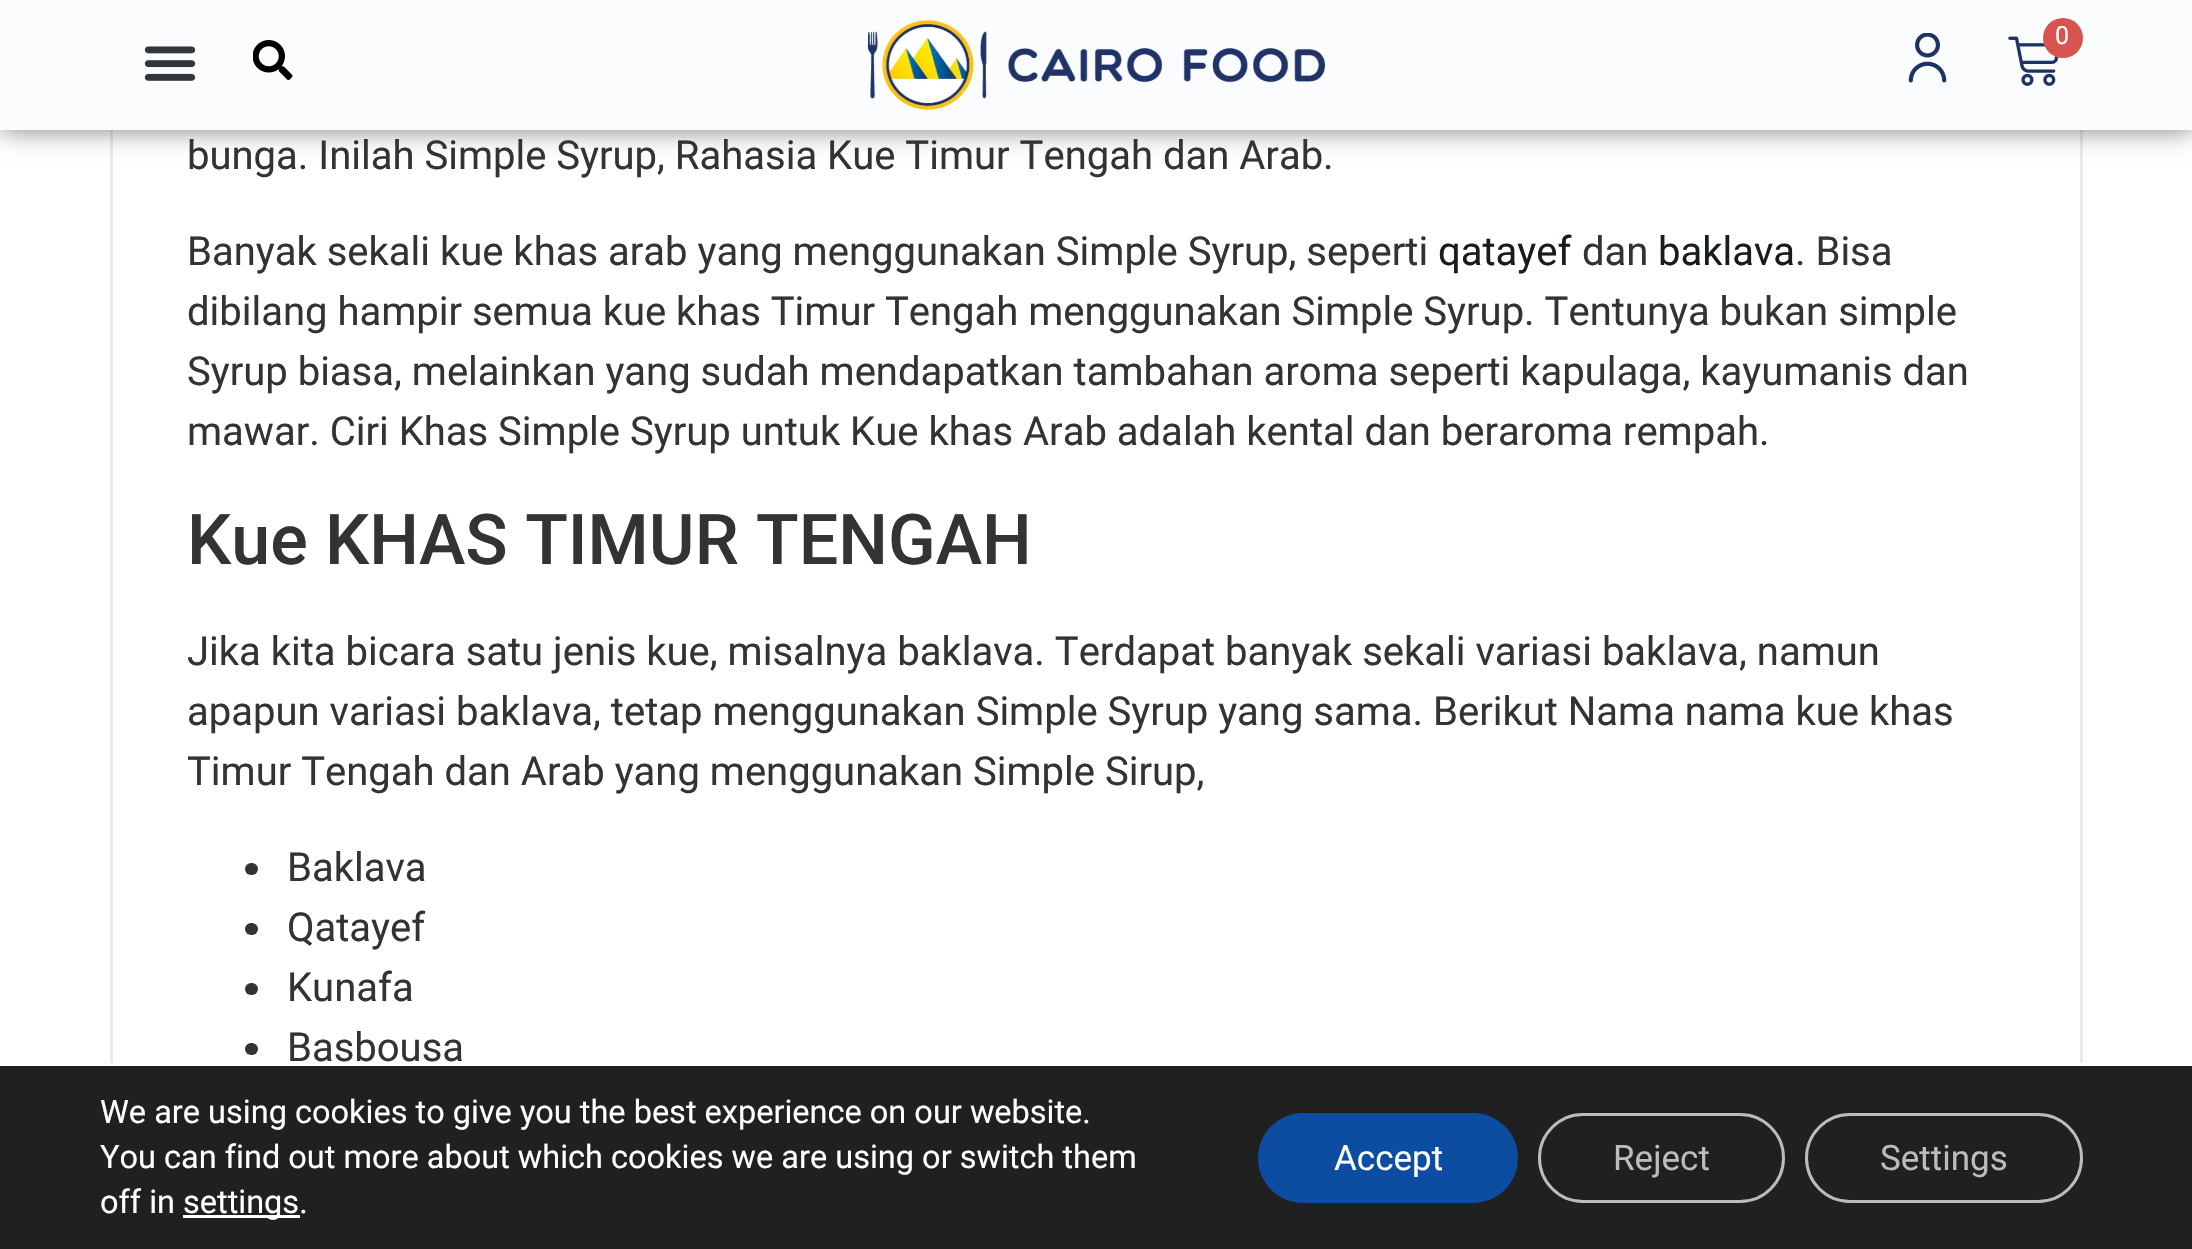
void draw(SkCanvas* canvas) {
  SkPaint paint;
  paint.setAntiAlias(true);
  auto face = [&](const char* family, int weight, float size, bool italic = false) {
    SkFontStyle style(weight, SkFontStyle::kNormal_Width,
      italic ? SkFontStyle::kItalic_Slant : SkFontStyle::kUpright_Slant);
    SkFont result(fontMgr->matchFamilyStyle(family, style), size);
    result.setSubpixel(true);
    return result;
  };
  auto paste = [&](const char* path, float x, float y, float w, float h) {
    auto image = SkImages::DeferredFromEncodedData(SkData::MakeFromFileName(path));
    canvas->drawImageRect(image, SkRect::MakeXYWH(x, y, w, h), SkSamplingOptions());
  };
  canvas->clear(0xffffffff);
  paint.setStroke(true);
  paint.setStrokeWidth(3);
  paint.setColor(0xffeaeaea);
  canvas->drawRect(SkRect::MakeXYWH(111.5f, -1.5f, 1970, 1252), paint);
  paint.setStroke(false);
  paint.setColor(0x80000000);
  paint.setMaskFilter(SkMaskFilter::MakeBlur(kNormal_SkBlurStyle, 12.5f));
  canvas->drawRect(SkRect::MakeXYWH(0, 0, 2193, 130), paint);
  paint.setMaskFilter(nullptr);
  paint.setColor(0xfffafcfe);
  canvas->drawRect(SkRect::MakeXYWH(0, 0, 2192, 130), paint);
  paste("img/1.png", 868, 20, 457, 90);
  paste("img/2.png", 1908, 33, 39, 50);
  paste("img/3.png", 2008, 36, 51, 50);
  paint.setColor(0xffd9534f);
  canvas->drawCircle(2063, 38, 20, paint);
  paste("img/4.png", 144, 46, 52, 35);
  paste("img/5.png", 253, 40, 40, 40);
  paint.setColor(0xff333333);
  canvas->drawRoundRect(SkRect::MakeXYWH(245, 863, 13, 12), 6, 6, paint);
  canvas->drawRoundRect(SkRect::MakeXYWH(245, 923, 13, 12), 6, 6, paint);
  canvas->drawRoundRect(SkRect::MakeXYWH(245, 983, 13, 12), 6, 6, paint);
  canvas->drawRoundRect(SkRect::MakeXYWH(245, 1043, 13, 12), 6, 6, paint);
  {
    const struct { float x, y, w, h; SkColor color; } items[] = {
      {0, 1066, 2192, 183, 0xff202020},
      {110, 1063, 1973, 3, 0xffffffff},
      {183, 1215, 117, 3, 0xffffffff},
    };
    for (auto [x, y, w, h, color] : items) {
      paint.setColor(color);
      canvas->drawRect(SkRect::MakeXYWH(x, y, w, h), paint);
    }
  }
  paint.setColor(0xff0c4da2);
  canvas->drawRoundRect(SkRect::MakeXYWH(1258, 1113, 260, 90), 45, 45, paint);
  paint.setStroke(true);
  paint.setColor(0xffbcbcbc);
  canvas->drawRoundRect(SkRect::MakeXYWH(1539.5f, 1114.5f, 244, 87), 43.5f, 43.5f, paint);
  canvas->drawRoundRect(SkRect::MakeXYWH(1806.5f, 1114.5f, 275, 87), 43.5f, 43.5f, paint);
  auto f0 = face("Roboto", 400, 25);
  paint.setStroke(false);
  paint.setColor(0xffffffff);
  canvas->drawString("0", 2055, 44, f0, paint);
  auto f1 = face("Roboto", 400, 40);
  paint.setColor(0xff333333);
  canvas->drawString("bunga. Inilah Simple Syrup, Rahasia Kue Timur Tengah dan Arab.", 187, 169, f1, paint);
  canvas->drawString("Banyak sekali kue khas arab yang menggunakan Simple Syrup, seperti", 187, 265, f1, paint);
  paint.setColor(0xff171d1c);
  canvas->drawString("qatayef", 1438, 265, f1, paint);
  paint.setColor(0xff333333);
  canvas->drawString("dan", 1582, 265, f1, paint);
  paint.setColor(0xff171d1c);
  canvas->drawString("baklava", 1658, 265, f1, paint);
  paint.setColor(0xff333333);
  {
    const struct { const char* s; float x, y; } items[] = {
      {". Bisa", 1795, 265},
      {"dibilang hampir semua kue khas Timur Tengah menggunakan Simple Syrup. Tentunya bukan simple", 187, 325},
      {"Syrup biasa, melainkan yang sudah mendapatkan tambahan aroma seperti kapulaga, kayumanis dan", 187, 385},
      {"mawar. Ciri Khas Simple Syrup untuk Kue khas Arab adalah kental dan beraroma rempah.", 187, 445},
    };
    for (auto [s, x, y] : items) {
      canvas->drawString(s, x, y, f1, paint);
    }
  }
  auto f2 = face("Roboto", 500, 70);
  canvas->drawString("Kue KHAS TIMUR TENGAH", 187, 564, f2, paint);
  {
    const struct { const char* s; float x, y; } items[] = {
      {"Jika kita bicara satu jenis kue, misalnya baklava. Terdapat banyak sekali variasi baklava, namun", 187, 665},
      {"apapun variasi baklava, tetap menggunakan Simple Syrup yang sama. Berikut Nama nama kue khas", 187, 725},
      {"Timur Tengah dan Arab yang menggunakan Simple Sirup,", 187, 785},
      {"Baklava", 287, 881},
      {"Qatayef", 287, 941},
      {"Kunafa", 287, 1001},
      {"Basbousa", 287, 1061},
    };
    for (auto [s, x, y] : items) {
      canvas->drawString(s, x, y, f1, paint);
    }
  }
  auto f3 = face("Roboto", 400, 32.5f);
  paint.setColor(0xffffffff);
  {
    const struct { const char* s; float x, y; } items[] = {
      {"We are using cookies to give you the best experience on our website.", 100, 1123},
      {"You can find out more about which cookies we are using or switch them", 100, 1168},
      {"off in", 100, 1213},
      {"settings.", 183, 1213},
    };
    for (auto [s, x, y] : items) {
      canvas->drawString(s, x, y, f3, paint);
    }
  }
  auto f4 = face("Roboto", 400, 35);
  canvas->drawString("Accept", 1334, 1170, f4, paint);
  paint.setColor(0xffbcbcbc);
  canvas->drawString("Reject", 1613, 1170, f4, paint);
  canvas->drawString("Settings", 1880, 1170, f4, paint);
}
